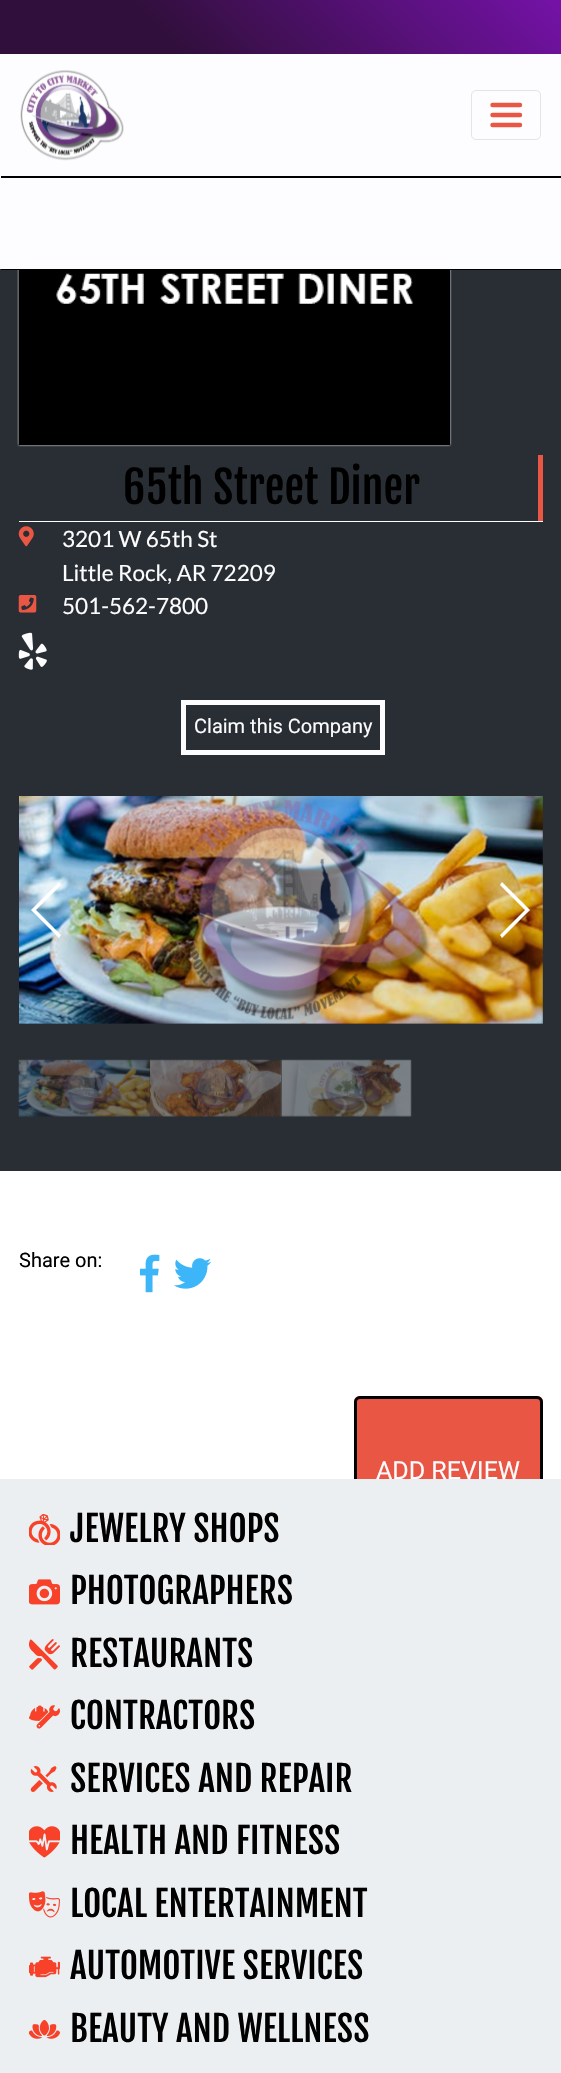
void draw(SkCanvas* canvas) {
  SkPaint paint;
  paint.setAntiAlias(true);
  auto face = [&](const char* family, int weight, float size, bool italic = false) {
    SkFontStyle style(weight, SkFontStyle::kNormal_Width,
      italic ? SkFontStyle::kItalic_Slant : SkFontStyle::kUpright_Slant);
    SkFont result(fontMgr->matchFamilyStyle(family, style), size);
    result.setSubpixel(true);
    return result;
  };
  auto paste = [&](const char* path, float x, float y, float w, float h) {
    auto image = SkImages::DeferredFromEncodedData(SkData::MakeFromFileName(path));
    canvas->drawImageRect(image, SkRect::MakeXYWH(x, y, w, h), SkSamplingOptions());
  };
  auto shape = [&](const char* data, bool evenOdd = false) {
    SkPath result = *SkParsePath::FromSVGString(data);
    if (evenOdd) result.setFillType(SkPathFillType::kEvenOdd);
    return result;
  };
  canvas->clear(0xffffffff);
  paint.setColor(0xff282e34);
  canvas->drawRect(SkRect::MakeXYWH(0, 269, 561, 902), paint);
  paint.setColor(0xff000000);
  canvas->drawPath(shape("M1 269V270H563V1H561V269Z"), paint);
  paint.setColor(0xfffdfcfe);
  canvas->drawRect(SkRect::MakeXYWH(0, 54, 561, 215), paint);
  {
    const SkColor colors[] = {0xff7512a8, 0xff310f3c, 0xff310f3c};
    const float stops[] = {0, 0.7f, 1};
    const SkPoint ends[] = {{434, -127}, {127, 181}};
    paint.setShader(SkGradientShader::MakeLinear(ends, colors, stops, 3, SkTileMode::kClamp));
    paint.setAlpha(255);
  }
  canvas->drawRect(SkRect::MakeXYWH(0, 0, 561, 54), paint);
  paint.setShader(nullptr);
  paint.setColor(0xff000000);
  canvas->drawPath(shape("M1 176V178H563V55H561V176Z"), paint);
  paste("img/1.png", 20, 70, 104, 91);
  paint.setStroke(true);
  paint.setStrokeWidth(1);
  paint.setColor(0xffe4e3e5);
  canvas->drawRoundRect(SkRect::MakeXYWH(471.5f, 90.5f, 69, 49), 4.5f, 4.5f, paint);
  paint.setStrokeWidth(4.4f);
  paint.setStrokeCap(SkPaint::kRound_Cap);
  paint.setColor(0xffea5644);
  canvas->drawPath(shape("M492.5 105H520M492.5 115H520M492.5 125H520"), paint);
  paste("img/2.png", 17, 270, 435, 177);
  paint.setStroke(false);
  canvas->drawRect(SkRect::MakeXYWH(538, 455, 5, 66), paint);
  paint.setColor(0xfffdfcfe);
  canvas->drawRect(SkRect::MakeXYWH(19, 521, 524, 1), paint);
  paste("img/3.png", 18, 526, 16, 21);
  paste("img/4.png", 18, 595, 19, 18);
  paste("img/5.png", 18, 632, 29, 38);
  paint.setStroke(true);
  paint.setStrokeWidth(5);
  paint.setStrokeCap(SkPaint::kButt_Cap);
  canvas->drawRect(SkRect::MakeXYWH(183.5f, 702.5f, 199, 50), paint);
  paste("img/6.png", 19, 796, 524, 228);
  paint.setStroke(false);
  paint.setColor(0xffffffff);
  canvas->drawPath(shape("M31 910L59 882L61 885L36 910L61 935L59 938Z"), paint);
  canvas->drawPath(shape("M530 910L502 938L500 935L525 910L500 885L502 882Z"), paint);
  paste("img/7.png", 18, 1059, 132, 58);
  paste("img/8.png", 150, 1059, 132, 58);
  paste("img/9.png", 280, 1059, 132, 58);
  paste("img/10.png", 140, 1254, 20, 39);
  paste("img/11.png", 174, 1258, 38, 31);
  paint.setColor(0xffea5644);
  canvas->drawPath(shape("M360 1396H537C540.5 1396 543 1398.5 543 1402V1479H354V1402C354 1398.5 356.5 1396 360 1396Z"), paint);
  paint.setColor(0xffeceff1);
  canvas->drawRect(SkRect::MakeXYWH(0, 1479, 561, 594), paint);
  canvas->save();
  canvas->clipRect(SkRect::MakeXYWH(0, 1379, 561, 100));
  paint.setStroke(true);
  paint.setStrokeWidth(3);
  paint.setColor(0xff000000);
  canvas->drawRoundRect(SkRect::MakeXYWH(355.5f, 1397.5f, 186, 145), 4.5f, 4.5f, paint);
  canvas->restore();
  paste("img/12.png", 29, 1514, 31, 31);
  paste("img/13.png", 29, 1579, 31, 26);
  paste("img/14.png", 29, 1639, 31, 31);
  paste("img/15.png", 29, 1705, 31, 24);
  paste("img/16.png", 30, 1766, 27, 26);
  paste("img/17.png", 29, 1826, 31, 32);
  paste("img/18.png", 29, 1891, 31, 27);
  paste("img/19.png", 29, 1956, 31, 22);
  paste("img/20.png", 29, 2020, 31, 19);
  auto f0 = face("Fjalla One", 400, 43.75f);
  paint.setStroke(false);
  canvas->drawString("65th Street Diner", 123, 504, f0, paint);
  auto f1 = face("Lato", 400, 22.5f);
  paint.setColor(0xfffdfcfe);
  {
    const struct { const char* s; float x, y; } items[] = {
      {"3201 W 65th St", 62, 547},
      {"Little Rock, AR 72209", 62, 581},
      {"501-562-7800", 62, 614},
    };
    for (auto [s, x, y] : items) {
      canvas->drawString(s, x, y, f1, paint);
    }
  }
  auto f2 = face("Roboto", 400, 20);
  canvas->drawString("Claim this Company", 194, 733, f2, paint);
  paint.setColor(0xff000000);
  canvas->drawString("Share on:", 19, 1267, f2, paint);
  auto f3 = face("Roboto", 400, 25);
  paint.setColor(0xfffdfcfe);
  canvas->drawString("ADD REVIEW", 376, 1479, f3, paint);
  auto f4 = face("Fjalla One", 400, 35);
  paint.setColor(0xff000000);
  {
    const struct { const char* s; float x, y; } items[] = {
      {"JEWELRY SHOPS", 70, 1542},
      {"PHOTOGRAPHERS", 70, 1604},
      {"RESTAURANTS", 70, 1667},
      {"CONTRACTORS", 70, 1729},
      {"SERVICES AND REPAIR", 70, 1792},
      {"HEALTH AND FITNESS", 70, 1854},
      {"LOCAL ENTERTAINMENT", 70, 1917},
      {"AUTOMOTIVE SERVICES", 70, 1979},
      {"BEAUTY AND WELLNESS", 70, 2042},
    };
    for (auto [s, x, y] : items) {
      canvas->drawString(s, x, y, f4, paint);
    }
  }
}
